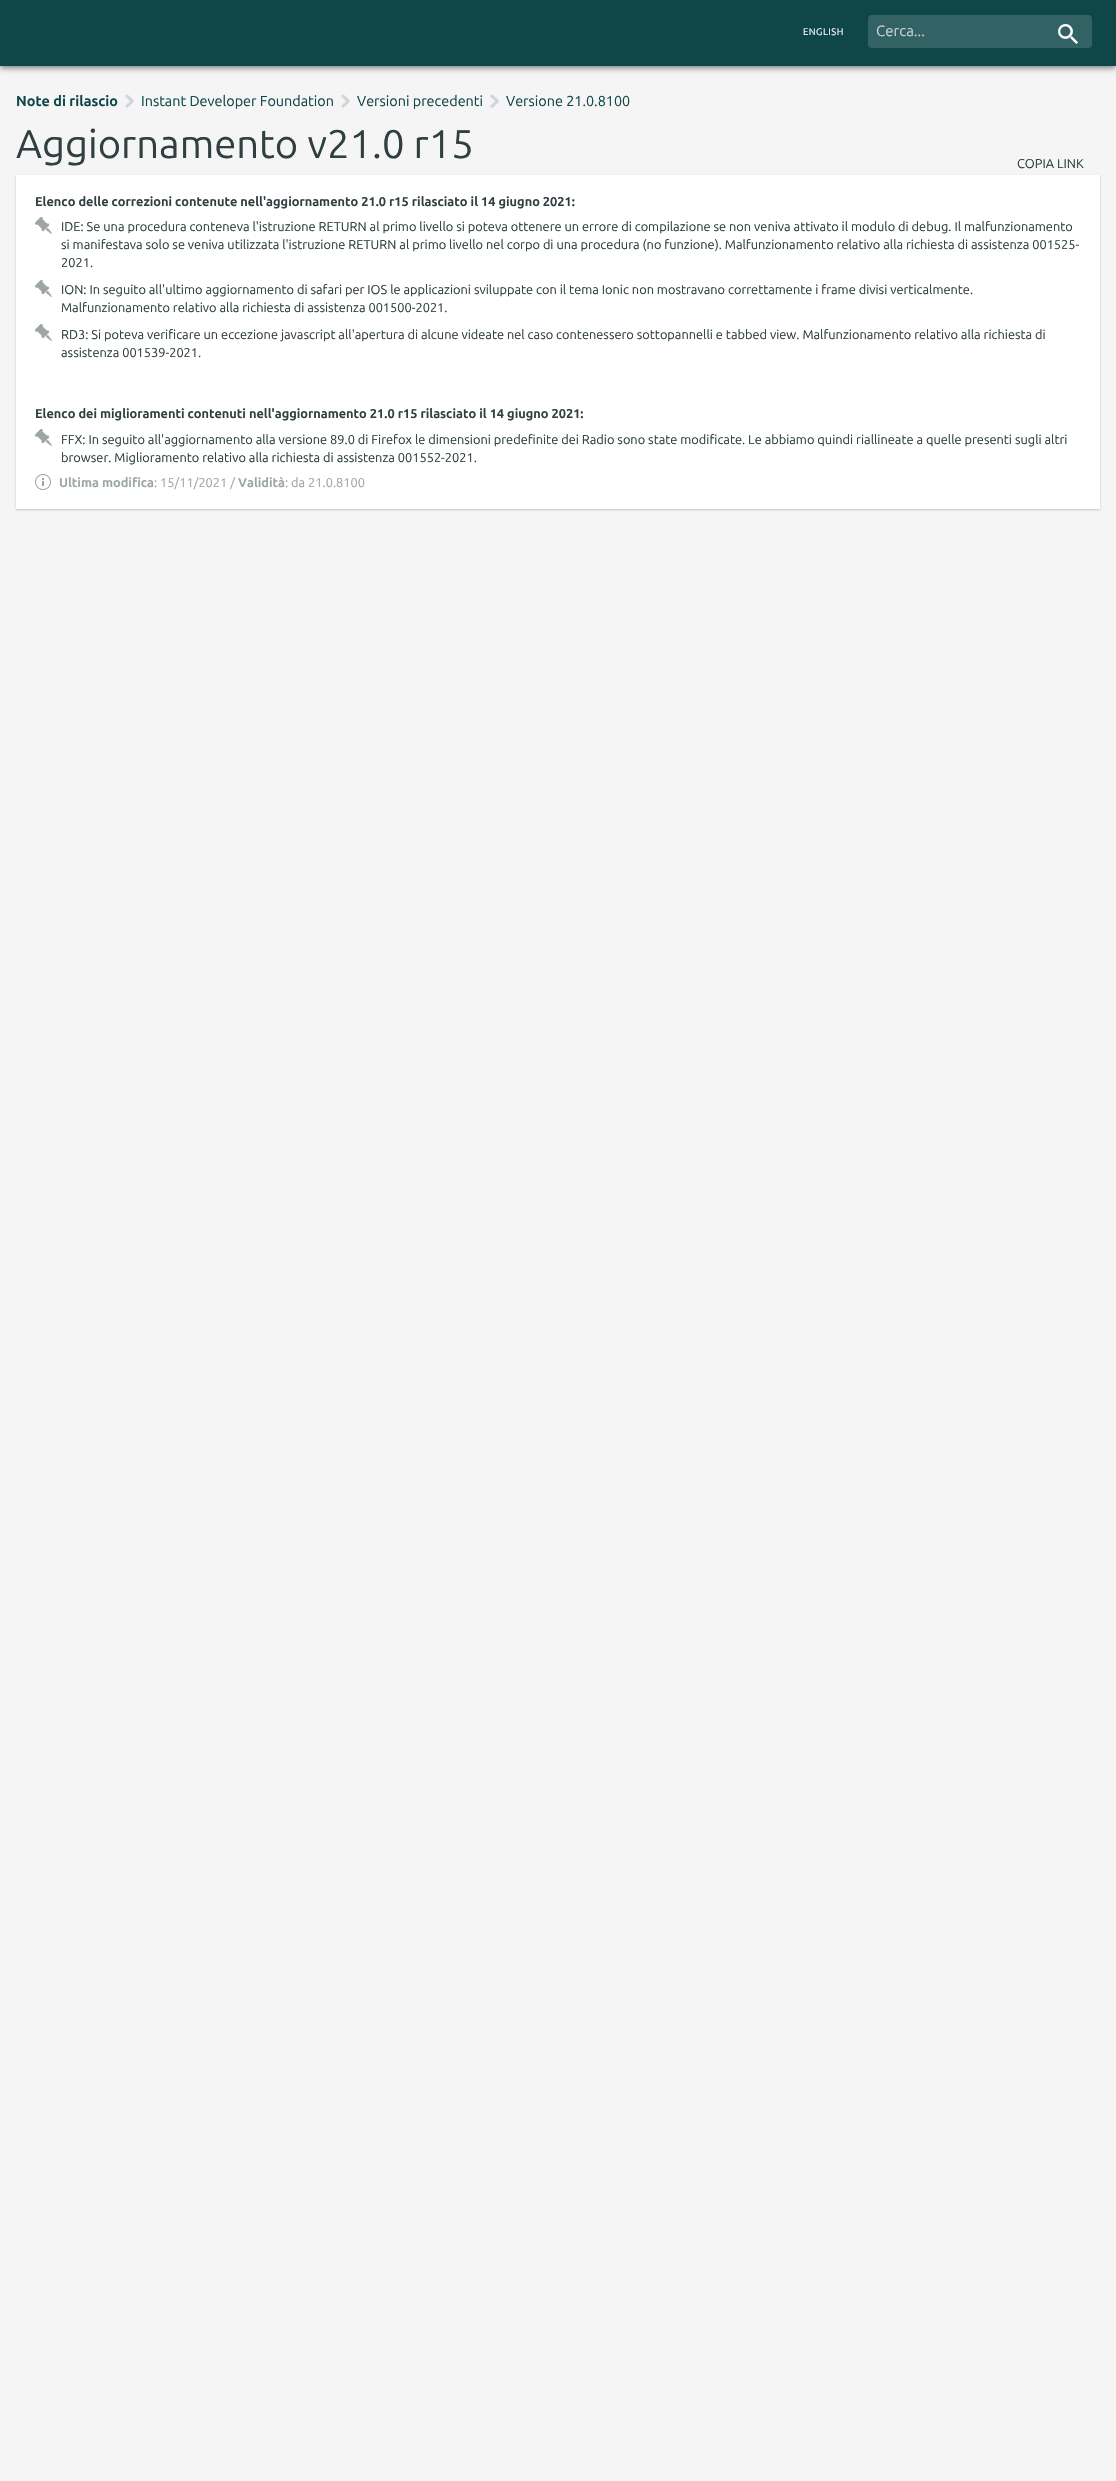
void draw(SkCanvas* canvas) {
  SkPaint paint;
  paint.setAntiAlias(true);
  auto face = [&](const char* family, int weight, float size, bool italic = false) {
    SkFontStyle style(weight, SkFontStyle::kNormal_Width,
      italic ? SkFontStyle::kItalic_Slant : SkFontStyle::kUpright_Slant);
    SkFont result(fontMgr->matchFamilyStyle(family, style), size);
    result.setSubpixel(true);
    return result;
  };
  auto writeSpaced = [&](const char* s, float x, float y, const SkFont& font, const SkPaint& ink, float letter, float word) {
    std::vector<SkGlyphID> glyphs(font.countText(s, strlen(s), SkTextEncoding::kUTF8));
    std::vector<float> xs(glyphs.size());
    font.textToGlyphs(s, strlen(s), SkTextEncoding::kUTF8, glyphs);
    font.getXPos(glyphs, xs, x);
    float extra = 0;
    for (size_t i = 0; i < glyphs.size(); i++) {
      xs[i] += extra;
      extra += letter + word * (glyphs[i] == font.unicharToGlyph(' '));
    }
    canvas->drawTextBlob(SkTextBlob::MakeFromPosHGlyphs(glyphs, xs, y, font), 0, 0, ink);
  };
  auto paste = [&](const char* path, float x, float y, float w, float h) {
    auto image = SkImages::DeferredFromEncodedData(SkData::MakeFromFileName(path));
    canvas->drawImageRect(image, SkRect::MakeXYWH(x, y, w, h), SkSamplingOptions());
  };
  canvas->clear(0xfff5f5f5);
  paint.setColor(0x80000000);
  paint.setMaskFilter(SkMaskFilter::MakeBlur(kNormal_SkBlurStyle, 3));
  canvas->drawRect(SkRect::MakeXYWH(0, 2, 1116, 66), paint);
  paint.setMaskFilter(nullptr);
  paint.setColor(0xff0f4749);
  canvas->drawRect(SkRect::MakeXYWH(0, 0, 1116, 66), paint);
  paint.setColor(0xff336264);
  canvas->drawRoundRect(SkRect::MakeXYWH(868, 15, 224, 33), 4, 4, paint);
  paste("img/1.png", 1058, 24, 20, 20);
  paste("img/2.png", 125, 94, 9, 14);
  paste("img/2.png", 341, 94, 9, 14);
  paste("img/2.png", 490, 94, 9, 14);
  paint.setColor(0x33000000);
  paint.setMaskFilter(SkMaskFilter::MakeBlur(kNormal_SkBlurStyle, 1));
  canvas->drawRect(SkRect::MakeXYWH(16, 176, 1084, 334), paint);
  paint.setMaskFilter(nullptr);
  paint.setColor(0xffffffff);
  canvas->drawRect(SkRect::MakeXYWH(16, 175, 1084, 334), paint);
  paste("img/3.png", 35, 217, 17, 17);
  paste("img/3.png", 35, 280, 17, 17);
  paste("img/3.png", 35, 324, 17, 17);
  paste("img/3.png", 35, 429, 17, 17);
  paste("img/4.png", 35, 474, 16, 16);
  auto f0 = face("Ubuntu", 400, 9.5f);
  writeSpaced("ENGLISH", 803, 35, f0, paint, 0.5f, 0);
  auto f1 = face("Ubuntu", 400, 15);
  paint.setColor(0xffced1d9);
  canvas->drawString("Cerca...", 876, 36, f1, paint);
  auto f2 = face("Ubuntu", 700, 14.4f);
  paint.setColor(0xff0f4749);
  canvas->drawString("Note di rilascio", 16, 106, f2, paint);
  auto f3 = face("Ubuntu", 400, 14.4f);
  {
    const struct { const char* s; float x, y; } items[] = {
      {"Instant Developer Foundation", 141, 106},
      {"Versioni precedenti", 357, 106},
      {"Versione 21.0.8100", 506, 106},
    };
    for (auto [s, x, y] : items) {
      canvas->drawString(s, x, y, f3, paint);
    }
  }
  auto f4 = face("Ubuntu", 400, 40);
  paint.setColor(0xff303f40);
  canvas->drawString("Aggiornamento v21.0 r15", 16, 158, f4, paint);
  auto f5 = face("Ubuntu", 400, 12.8f);
  canvas->drawString("COPIA LINK", 1017, 168, f5, paint);
  auto f6 = face("Ubuntu", 700, 12.8f);
  canvas->drawString("Elenco delle correzioni contenute nell'aggiornamento 21.0 r15 rilasciato il 14 giugno 2021:", 35, 206, f6, paint);
  {
    const struct { const char* s; float x, y; } items[] = {
      {"IDE: Se una procedura conteneva l'istruzione RETURN al primo livello si poteva ottenere un errore di compilazione se non veniva attivato il modulo di debug. Il malfunzionamento", 61, 231},
      {"si manifestava solo se veniva utilizzata l'istruzione RETURN al primo livello nel corpo di una procedura (no funzione). Malfunzionamento relativo alla richiesta di assistenza 001525-", 61, 249},
      {"2021.", 61, 267},
      {"ION: In seguito all'ultimo aggiornamento di safari per IOS le applicazioni sviluppate con il tema Ionic non mostravano correttamente i frame divisi verticalmente.", 61, 294},
      {"Malfunzionamento relativo alla richiesta di assistenza 001500-2021.", 61, 312},
      {"RD3: Si poteva verificare un eccezione javascript all'apertura di alcune videate nel caso contenessero sottopannelli e tabbed view. Malfunzionamento relativo alla richiesta di", 61, 339},
      {"assistenza 001539-2021.", 61, 357},
    };
    for (auto [s, x, y] : items) {
      canvas->drawString(s, x, y, f5, paint);
    }
  }
  canvas->drawString("Elenco dei miglioramenti contenuti nell'aggiornamento 21.0 r15 rilasciato il 14 giugno 2021:", 35, 418, f6, paint);
  canvas->drawString("FFX: In seguito all'aggiornamento alla versione 89.0 di Firefox le dimensioni predefinite dei Radio sono state modificate. Le abbiamo quindi riallineate a quelle presenti sugli altri", 61, 444, f5, paint);
  canvas->drawString("browser. Miglioramento relativo alla richiesta di assistenza 001552-2021.", 61, 462, f5, paint);
  paint.setColor(0xff9da69f);
  canvas->drawString("Ultima modifica", 59, 487, f6, paint);
  canvas->drawString(": 15/11/2021 /", 154, 487, f5, paint);
  canvas->drawString("Validità", 238, 487, f6, paint);
  canvas->drawString(": da 21.0.8100", 285, 487, f5, paint);
}
